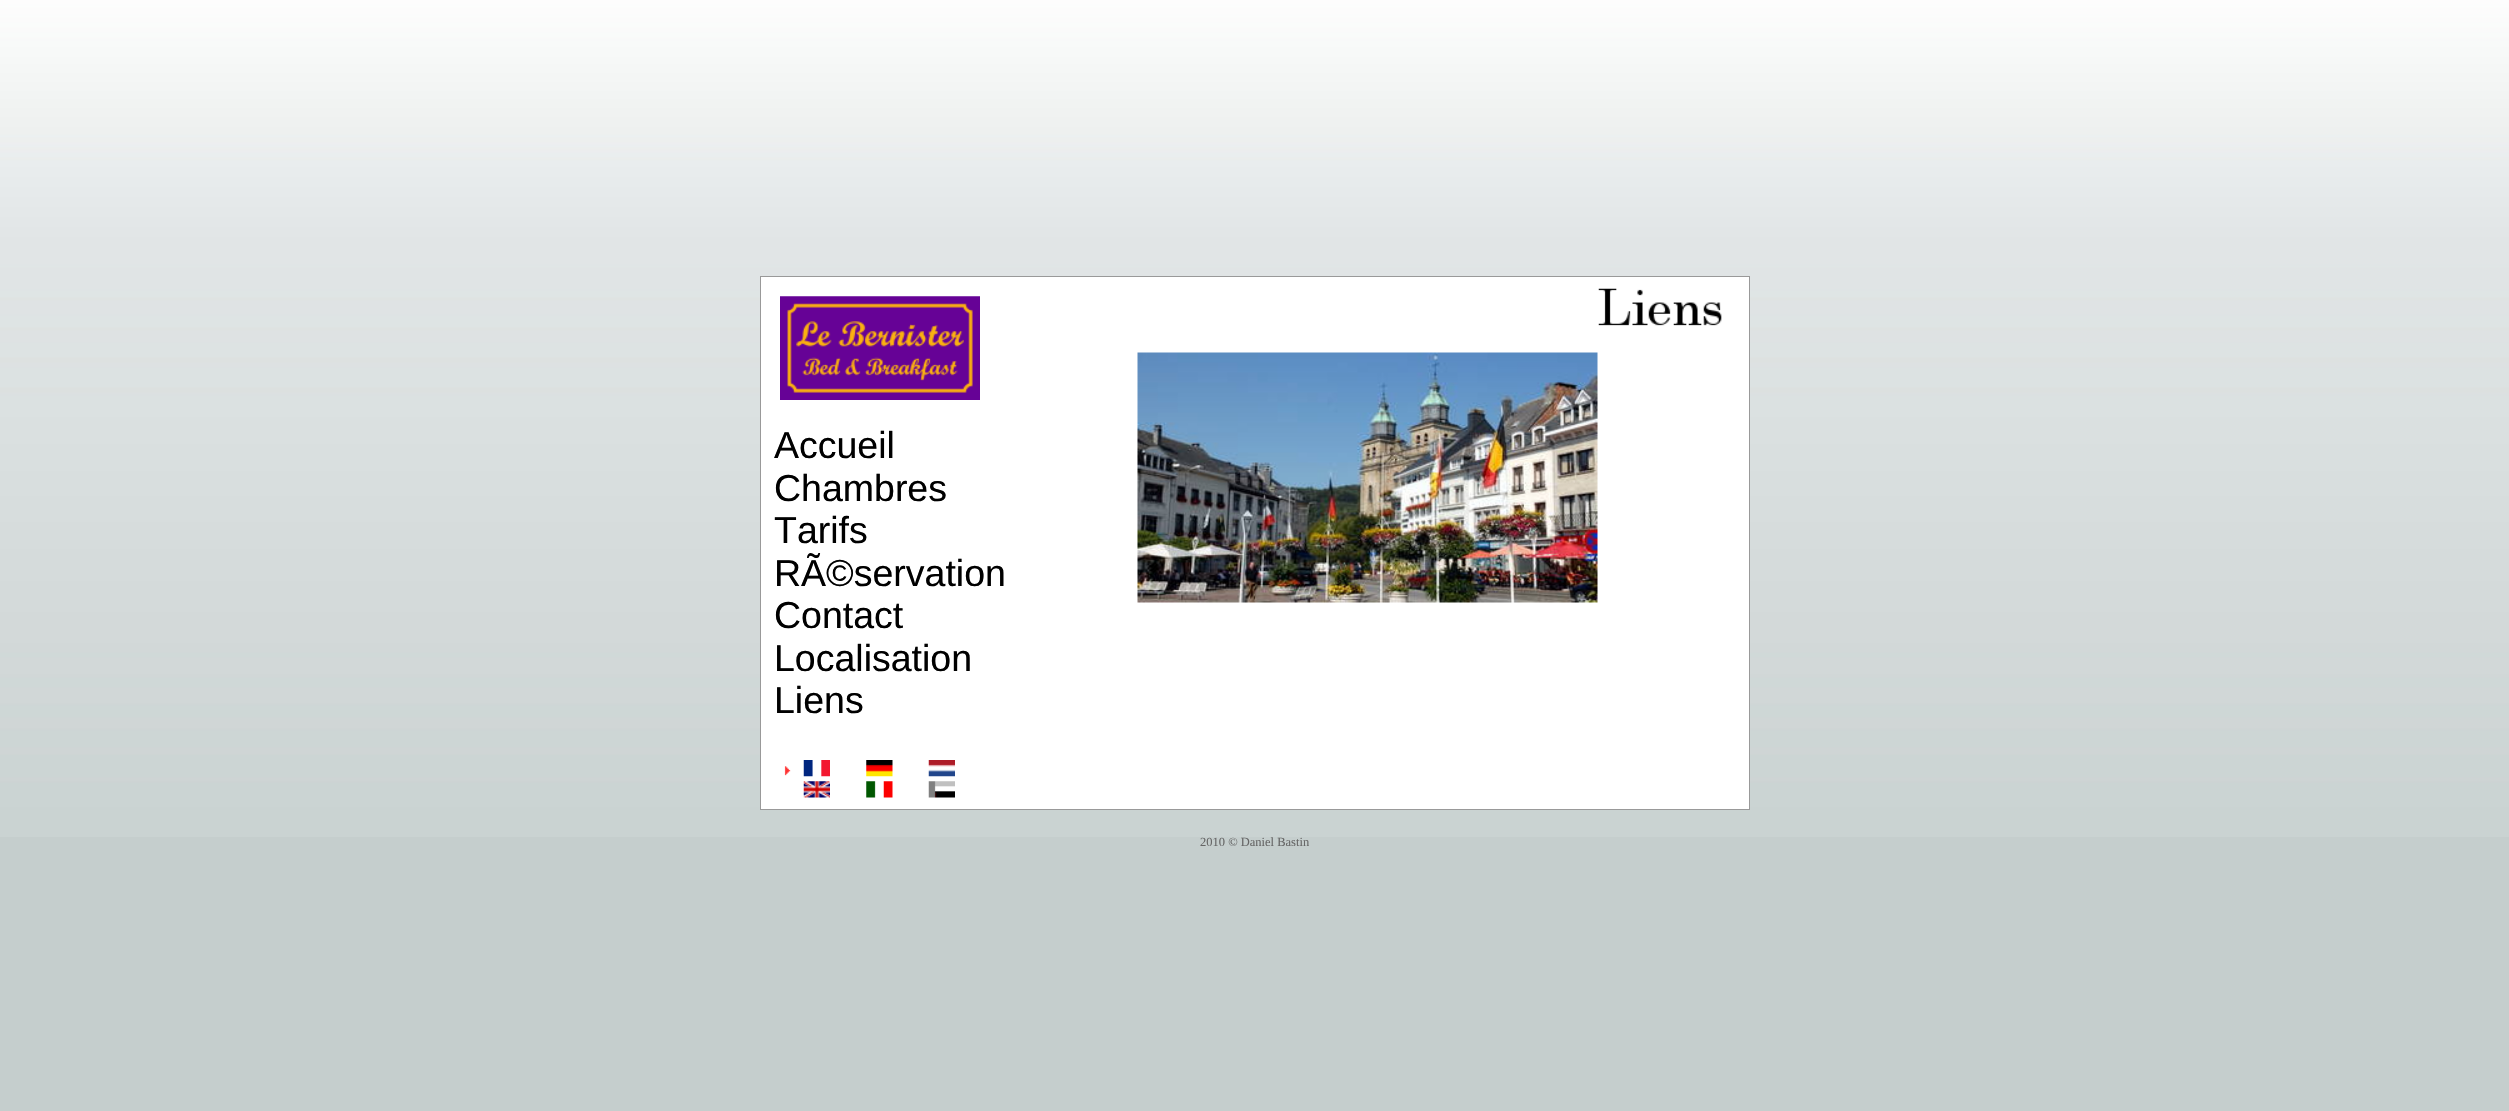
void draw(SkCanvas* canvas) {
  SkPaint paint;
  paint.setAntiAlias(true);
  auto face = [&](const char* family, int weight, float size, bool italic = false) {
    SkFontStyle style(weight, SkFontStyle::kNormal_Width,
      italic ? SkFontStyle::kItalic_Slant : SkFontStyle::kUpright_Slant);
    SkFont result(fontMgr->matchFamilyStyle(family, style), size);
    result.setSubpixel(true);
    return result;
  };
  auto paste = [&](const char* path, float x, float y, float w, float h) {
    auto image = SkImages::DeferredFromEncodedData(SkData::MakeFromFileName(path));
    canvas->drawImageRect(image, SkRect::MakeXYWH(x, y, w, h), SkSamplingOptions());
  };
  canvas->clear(0xffc5cecd);
  paste("img/1.png", 0, 0, 2509, 837);
  paint.setColor(0xffffffff);
  canvas->drawRect(SkRect::MakeXYWH(760.5f, 276.5f, 989, 533), paint);
  paint.setStroke(true);
  paint.setStrokeWidth(1);
  paint.setColor(0xff999999);
  canvas->drawRect(SkRect::MakeXYWH(760.5f, 276.5f, 989, 533), paint);
  paste("img/2.png", 780, 296, 200, 104);
  paste("img/3.png", 784, 766, 7, 10);
  paste("img/4.png", 803, 760, 27, 17);
  paste("img/5.png", 866, 760, 27, 17);
  paste("img/6.png", 928, 760, 27, 17);
  paste("img/7.png", 803, 781, 27, 17);
  paste("img/8.png", 866, 781, 27, 17);
  paste("img/9.png", 928, 781, 27, 17);
  paste("img/10.png", 1598, 288, 124, 38);
  paste("img/11.png", 1137, 352, 461, 251);
  auto f0 = face("Liberation Sans", 400, 37.5f);
  paint.setStroke(false);
  paint.setColor(0xff000000);
  {
    const struct { const char* s; float x, y; } items[] = {
      {"Accueil", 774, 458},
      {"Chambres", 774, 501},
      {"Tarifs", 774, 543},
      {"RÃ©servation", 774, 586},
      {"Contact", 774, 628},
      {"Localisation", 774, 671},
      {"Liens", 774, 713},
    };
    for (auto [s, x, y] : items) {
      canvas->drawString(s, x, y, f0, paint);
    }
  }
  auto f1 = face("Liberation Serif", 400, 12.5f);
  paint.setColor(0xff666666);
  canvas->drawString("2010 © Daniel Bastin", 1200, 846, f1, paint);
}
